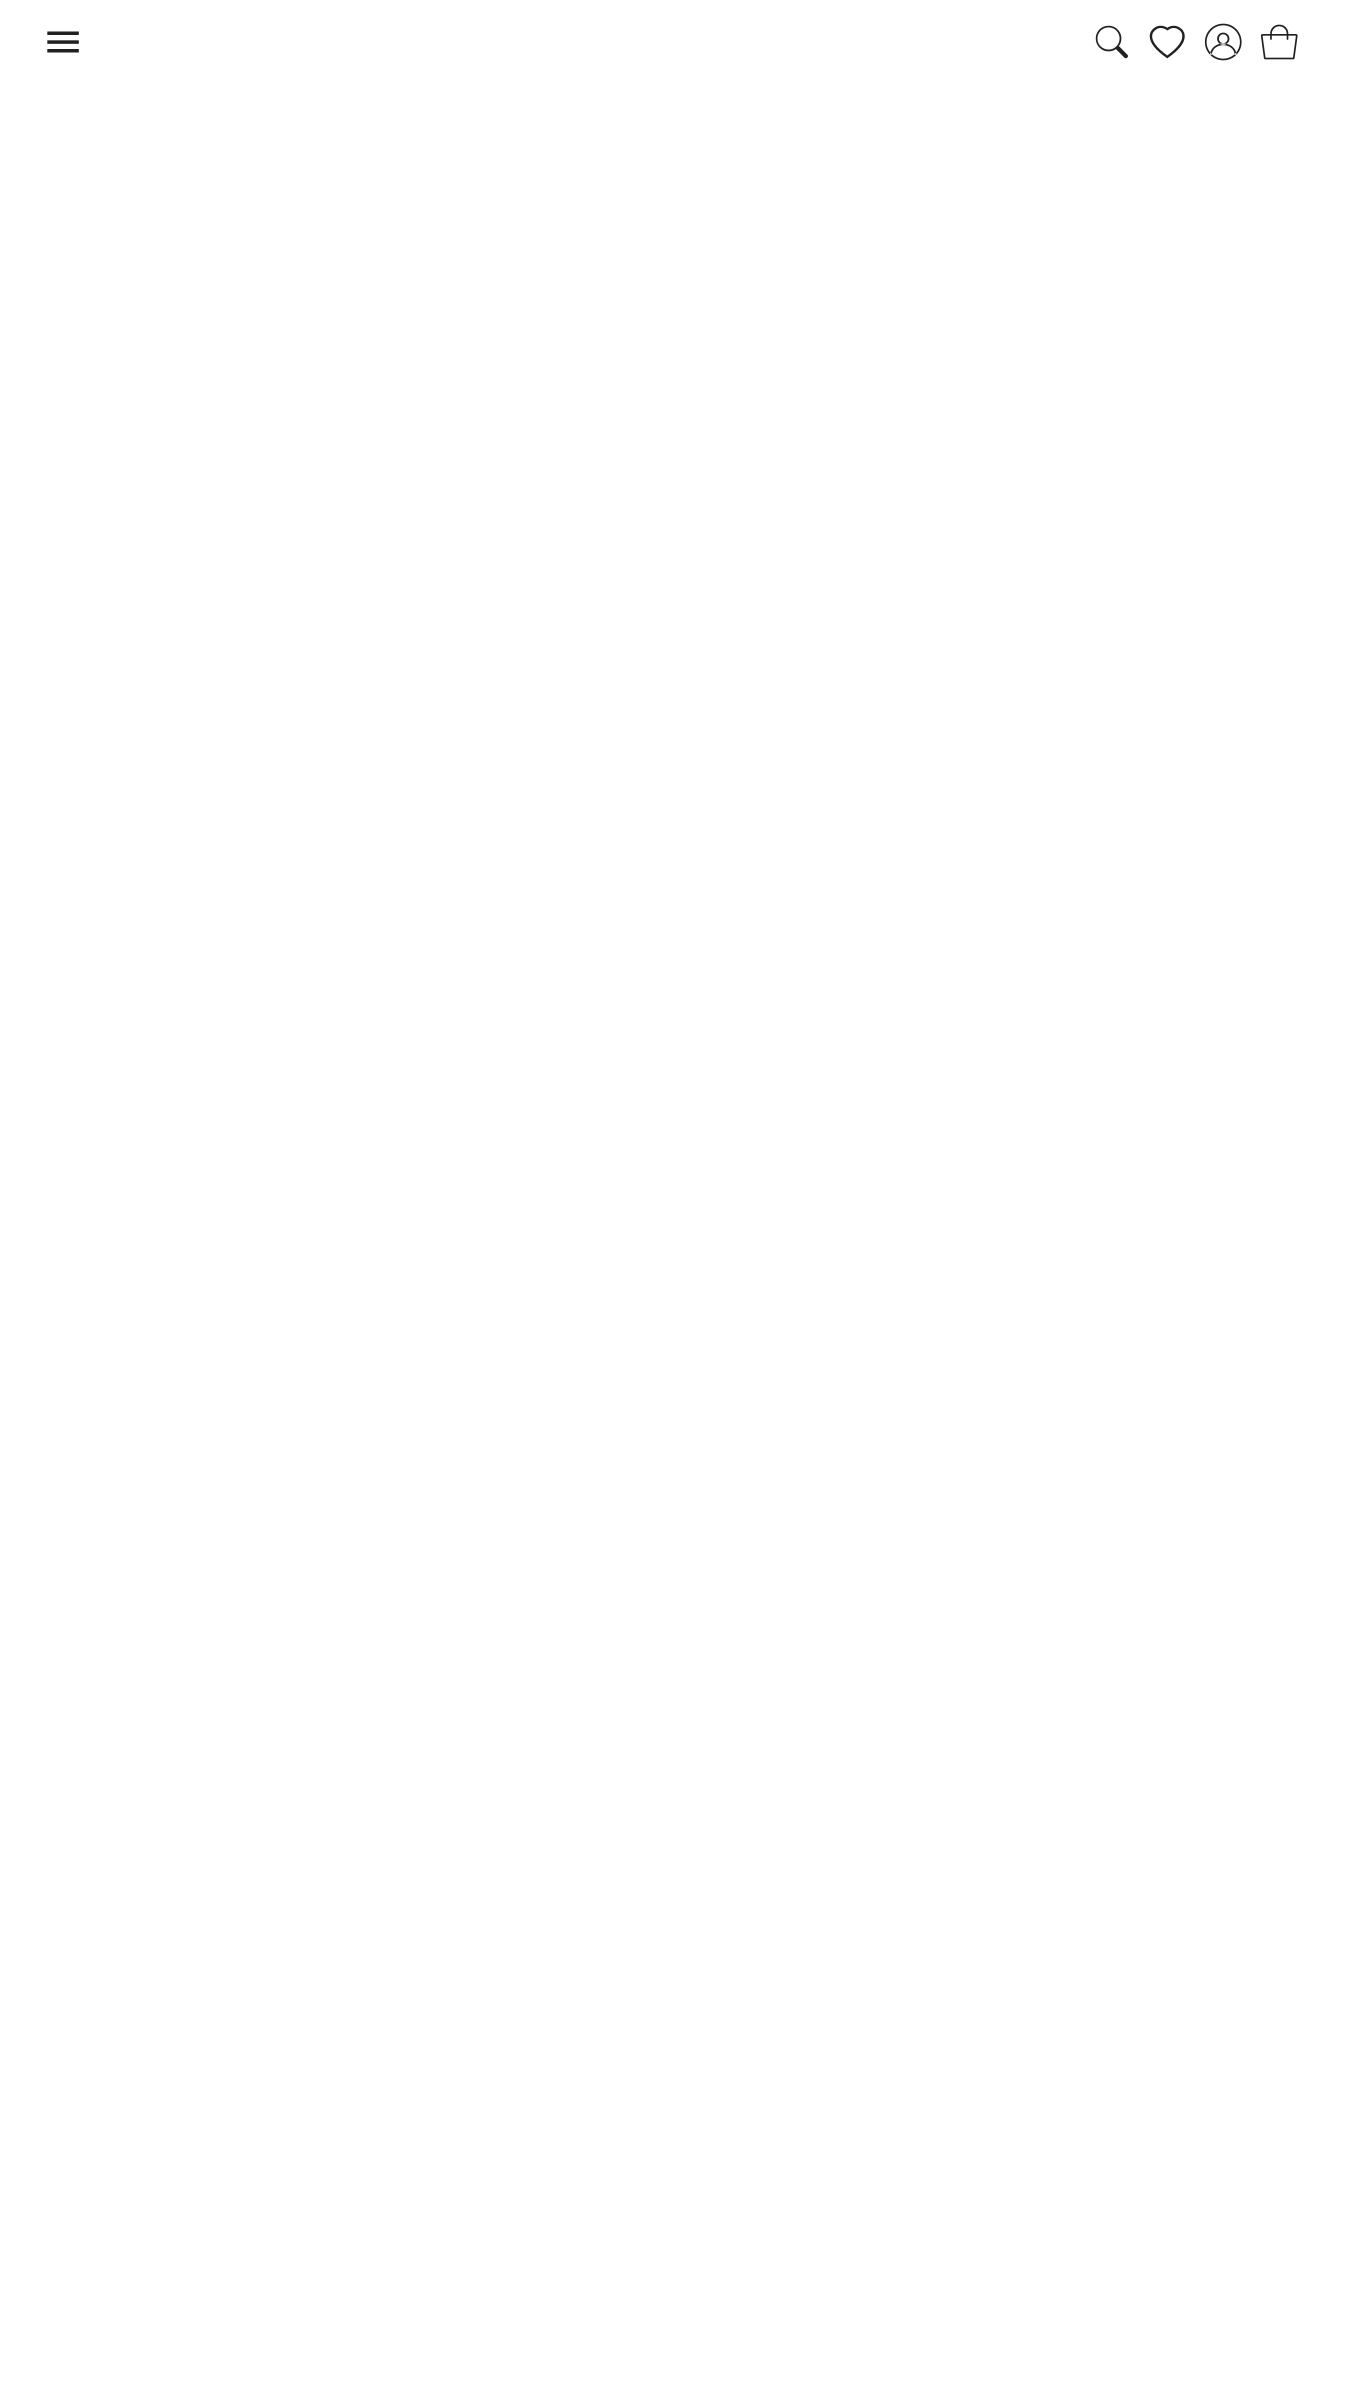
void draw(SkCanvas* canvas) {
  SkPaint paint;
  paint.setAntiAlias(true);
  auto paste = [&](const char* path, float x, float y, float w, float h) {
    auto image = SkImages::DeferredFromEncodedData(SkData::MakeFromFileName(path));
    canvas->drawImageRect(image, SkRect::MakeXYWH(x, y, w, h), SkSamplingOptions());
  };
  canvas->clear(0xffffffff);
  paste("img/1.png", 47, 31, 32, 22);
  paste("img/2.png", 1095, 25, 33, 34);
  paste("img/3.png", 1149, 25, 36, 34);
  paste("img/4.png", 1204, 23, 38, 38);
  paste("img/5.png", 1260, 24, 38, 36);
}
